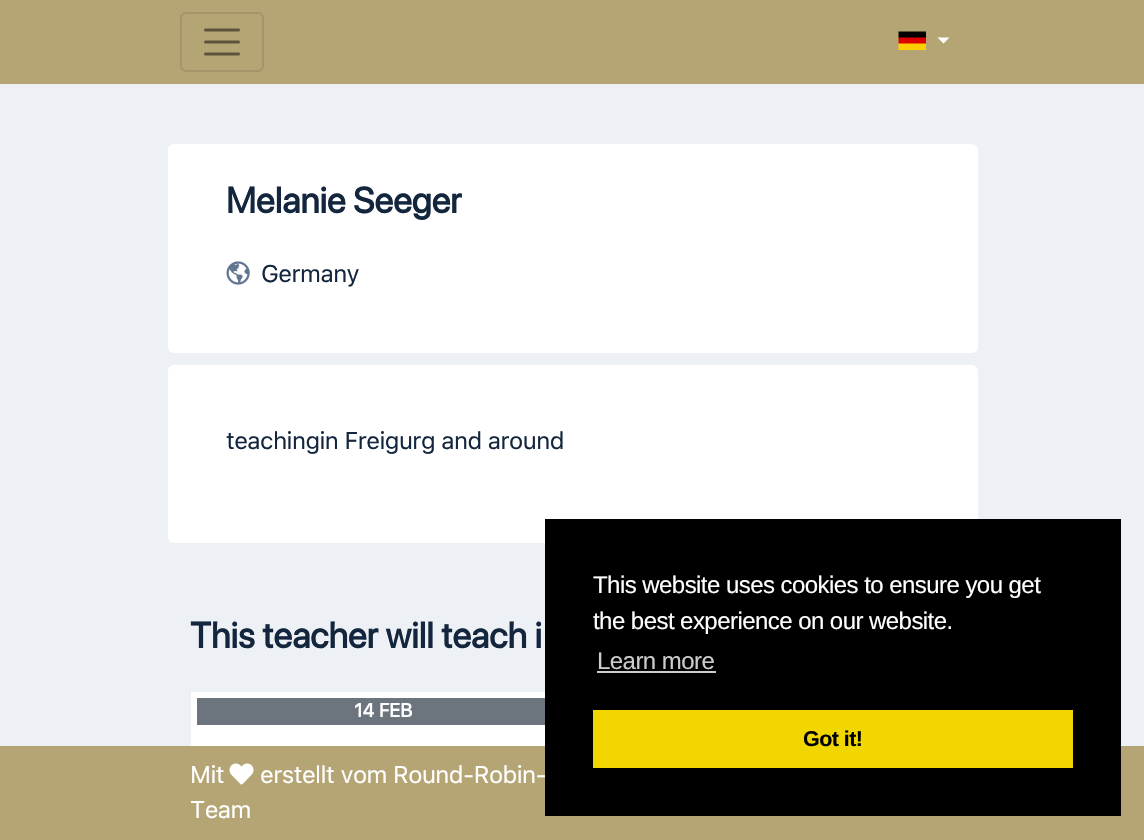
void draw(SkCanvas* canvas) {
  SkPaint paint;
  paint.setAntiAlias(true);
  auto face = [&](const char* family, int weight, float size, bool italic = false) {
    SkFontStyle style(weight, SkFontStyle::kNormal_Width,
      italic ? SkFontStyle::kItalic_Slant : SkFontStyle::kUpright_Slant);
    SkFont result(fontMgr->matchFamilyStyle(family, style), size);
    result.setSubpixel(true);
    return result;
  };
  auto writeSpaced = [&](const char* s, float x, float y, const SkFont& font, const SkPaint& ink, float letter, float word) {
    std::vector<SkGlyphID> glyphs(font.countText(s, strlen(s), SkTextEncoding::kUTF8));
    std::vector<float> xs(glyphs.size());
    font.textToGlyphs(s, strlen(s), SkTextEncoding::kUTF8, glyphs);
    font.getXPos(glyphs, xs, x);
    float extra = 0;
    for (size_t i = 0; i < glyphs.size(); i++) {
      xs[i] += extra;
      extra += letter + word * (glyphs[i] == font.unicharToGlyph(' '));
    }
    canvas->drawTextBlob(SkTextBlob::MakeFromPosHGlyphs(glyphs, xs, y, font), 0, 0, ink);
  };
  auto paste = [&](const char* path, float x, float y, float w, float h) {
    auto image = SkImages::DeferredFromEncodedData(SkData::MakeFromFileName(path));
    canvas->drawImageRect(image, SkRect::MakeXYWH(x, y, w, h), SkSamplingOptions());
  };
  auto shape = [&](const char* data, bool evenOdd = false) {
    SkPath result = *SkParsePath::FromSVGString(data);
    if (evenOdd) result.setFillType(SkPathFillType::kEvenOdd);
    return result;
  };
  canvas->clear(0xffedf1f5);
  paint.setColor(0xffb5a575);
  canvas->drawRect(SkRect::MakeXYWH(0, 0, 1144, 84), paint);
  paint.setStroke(true);
  paint.setStrokeWidth(2);
  paint.setColor(0xffa39569);
  canvas->drawRoundRect(SkRect::MakeXYWH(181, 13, 82, 58), 5, 5, paint);
  paint.setStrokeWidth(3);
  paint.setStrokeCap(SkPaint::kRound_Cap);
  paint.setColor(0xff5b533b);
  canvas->drawPath(shape("M205.5 30H238.5M205.5 42H238.5M205.5 54H238.5"), paint);
  paste("img/1.png", 898, 31, 28, 19);
  paint.setStroke(false);
  paint.setColor(0xffffffff);
  canvas->drawPath(shape("M937.5 37.5H949.5L943.5 43.5Z"), paint);
  canvas->drawRoundRect(SkRect::MakeXYWH(168, 144, 810, 209), 6, 6, paint);
  paste("img/2.png", 226, 261, 24, 24);
  canvas->drawRoundRect(SkRect::MakeXYWH(168, 365, 810, 178), 6, 6, paint);
  {
    const struct { float x, y, w, h; SkColor color; } items[] = {
      {191, 692, 354, 54, 0xffffffff},
      {197, 698, 348, 27, 0xff6c757d},
      {0, 746, 1144, 94, 0xffb5a575},
    };
    for (auto [x, y, w, h, color] : items) {
      paint.setColor(color);
      canvas->drawRect(SkRect::MakeXYWH(x, y, w, h), paint);
    }
  }
  paste("img/3.png", 229, 763, 25, 22);
  auto f0 = face("SF Pro Display", 700, 36);
  paint.setColor(0xff13263e);
  writeSpaced("Melanie Seeger", 226, 213, f0, paint, 0.15f, 0);
  auto f1 = face("SF Pro Text", 400, 24);
  writeSpaced("Germany", 261, 282, f1, paint, -0.55f, 0);
  writeSpaced("teachingin Freigurg and around", 226, 449, f1, paint, -0.55f, 0);
  writeSpaced("This teacher will teach i", 190, 648, f0, paint, 0.15f, 0);
  auto f2 = face("SF Pro Text", 700, 19);
  paint.setColor(0xffffffff);
  writeSpaced("14 FEB", 354, 717, f2, paint, -0.55f, 0);
  writeSpaced("Mit", 190, 783, f1, paint, -0.55f, 0);
  writeSpaced("erstellt vom Round-Robin-", 260, 783, f1, paint, -0.55f, 0);
  paint.setColor(0xff000000);
  canvas->drawRect(SkRect::MakeXYWH(545, 519, 576, 297), paint);
  auto f3 = face("Liberation Sans", 400, 24);
  paint.setColor(0xffcccccc);
  writeSpaced("Learn more", 597, 669, f3, paint, -0.55f, 0);
  canvas->drawRect(SkRect::MakeXYWH(597, 671, 119, 2), paint);
  paint.setColor(0xfff1d600);
  canvas->drawRect(SkRect::MakeXYWH(593, 710, 480, 58), paint);
  auto f4 = face("Liberation Sans", 700, 21.5f);
  paint.setColor(0xff000000);
  writeSpaced("Got it!", 803, 746, f4, paint, -0.55f, 0);
  paint.setColor(0xffffffff);
  writeSpaced("the best experience on our website.", 593, 629, f3, paint, -0.55f, 0);
  writeSpaced("This website uses cookies to ensure you get", 593, 593, f3, paint, -0.55f, 0);
  writeSpaced("Team", 190, 818, f1, paint, -0.55f, 0);
}
